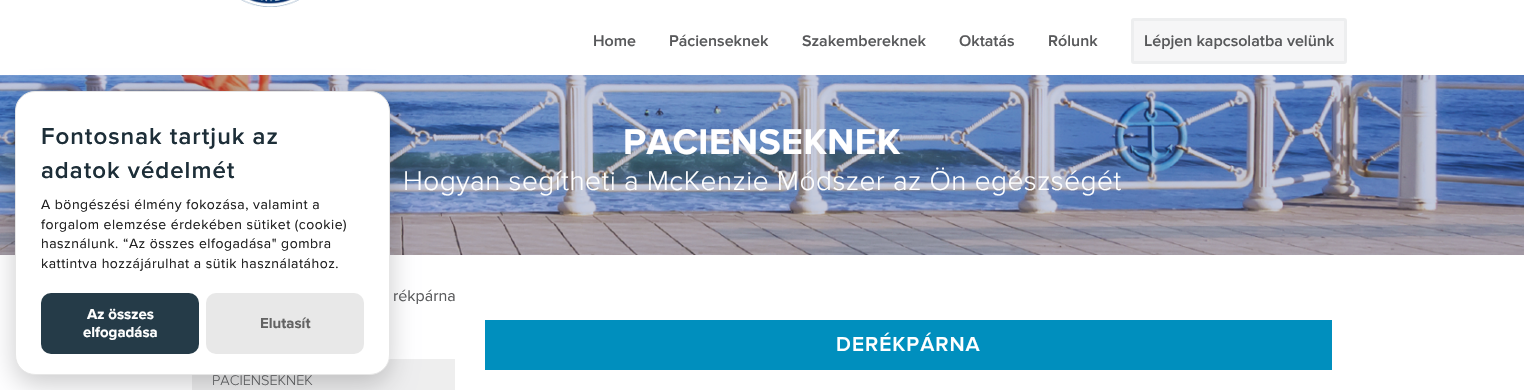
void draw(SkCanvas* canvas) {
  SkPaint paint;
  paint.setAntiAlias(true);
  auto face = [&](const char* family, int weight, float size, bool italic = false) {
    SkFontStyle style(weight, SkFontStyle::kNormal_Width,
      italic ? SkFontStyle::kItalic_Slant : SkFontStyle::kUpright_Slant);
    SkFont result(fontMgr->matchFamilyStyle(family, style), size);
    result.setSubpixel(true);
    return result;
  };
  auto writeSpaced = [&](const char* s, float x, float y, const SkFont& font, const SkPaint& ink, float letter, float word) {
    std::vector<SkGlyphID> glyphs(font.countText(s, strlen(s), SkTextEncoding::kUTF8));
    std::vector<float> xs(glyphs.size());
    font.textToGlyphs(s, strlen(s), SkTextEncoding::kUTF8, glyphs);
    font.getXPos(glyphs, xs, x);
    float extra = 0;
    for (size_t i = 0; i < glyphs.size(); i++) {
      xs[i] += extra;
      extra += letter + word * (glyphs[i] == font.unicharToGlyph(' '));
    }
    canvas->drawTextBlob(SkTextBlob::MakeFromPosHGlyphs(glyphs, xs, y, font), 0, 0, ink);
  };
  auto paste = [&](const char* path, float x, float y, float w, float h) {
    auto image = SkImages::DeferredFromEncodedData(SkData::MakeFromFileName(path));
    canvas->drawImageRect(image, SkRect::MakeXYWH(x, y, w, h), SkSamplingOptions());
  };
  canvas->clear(0xffffffff);
  paste("img/2.png", 0, 75, 1524, 180);
  paint.setColor(0xffeeeeee);
  canvas->drawRect(SkRect::MakeXYWH(192, 359, 263, 31), paint);
  paint.setColor(0x33020203);
  paint.setMaskFilter(SkMaskFilter::MakeBlur(kNormal_SkBlurStyle, 13.5f));
  canvas->drawRoundRect(SkRect::MakeXYWH(15, 100, 375, 284), 20, 20, paint);
  paint.setMaskFilter(nullptr);
  paste("img/1.png", 241, 0, 58, 7);
  paint.setColor(0xfff6f6f7);
  canvas->drawRoundRect(SkRect::MakeXYWH(1132.5f, 19.5f, 213, 43), 1.5f, 1.5f, paint);
  paint.setStroke(true);
  paint.setStrokeWidth(3);
  paint.setColor(0xffedeeef);
  canvas->drawRoundRect(SkRect::MakeXYWH(1132.5f, 19.5f, 213, 43), 1.5f, 1.5f, paint);
  paint.setStroke(false);
  paint.setColor(0xff008fbe);
  canvas->drawRect(SkRect::MakeXYWH(485, 320, 847, 50), paint);
  auto f0 = face("Proxima Nova", 600, 16);
  paint.setColor(0xff58595b);
  {
    const struct { const char* s; float x, y; } items[] = {
      {"Home", 593, 46},
      {"Pácienseknek", 669, 46},
      {"Szakembereknek", 802, 46},
      {"Oktatás", 959, 46},
      {"Rólunk", 1048, 46},
      {"Lépjen kapcsolatba velünk", 1144, 46},
    };
    for (auto [s, x, y] : items) {
      canvas->drawString(s, x, y, f0, paint);
    }
  }
  auto f1 = face("Proxima Nova", 700, 37);
  paint.setColor(0xffffffff);
  writeSpaced("PACIENSEKNEK", 623, 154, f1, paint, 0.5f, 0);
  auto f2 = face("Proxima Nova", 300, 28);
  writeSpaced("Hogyan segítheti a McKenzie Módszer az Ön egészségét", 403, 190, f2, paint, 0.5f, 0);
  auto f3 = face("Proxima Nova", 400, 16);
  paint.setColor(0xff58595b);
  canvas->drawString("rékpárna", 393, 301, f3, paint);
  auto f4 = face("Proxima Nova", 600, 21);
  paint.setColor(0xffffffff);
  writeSpaced("DERÉKPÁRNA", 836, 351, f4, paint, 1, 0);
  auto f5 = face("Proxima Nova", 300, 14.5f);
  paint.setColor(0xff58595b);
  canvas->drawString("PÁCIENSEKNEK", 212, 385, f5, paint);
  paint.setColor(0xffffffff);
  canvas->drawRoundRect(SkRect::MakeXYWH(15.5f, 91.5f, 374, 283), 19.5f, 19.5f, paint);
  paint.setStroke(true);
  paint.setStrokeWidth(1);
  paint.setColor(0xffe6e6e6);
  canvas->drawRoundRect(SkRect::MakeXYWH(15.5f, 91.5f, 374, 283), 19.5f, 19.5f, paint);
  paint.setStroke(false);
  paint.setColor(0xffe8e8e8);
  canvas->drawRoundRect(SkRect::MakeXYWH(206, 293, 158, 61), 10, 10, paint);
  auto f6 = face("Proxima Nova", 700, 15);
  paint.setColor(0xff636363);
  canvas->drawString("Elutasít", 260, 328, f6, paint);
  paint.setColor(0xff253b48);
  canvas->drawRoundRect(SkRect::MakeXYWH(41, 293, 158, 61), 10, 10, paint);
  paint.setColor(0xffffffff);
  canvas->drawString("elfogadása", 83, 337, f6, paint);
  canvas->drawString("Az összes", 87, 319, f6, paint);
  auto f7 = face("Proxima Nova", 400, 14);
  paint.setColor(0xff212121);
  {
    const struct { const char* s; float x, y; } items[] = {
      {"kattintva hozzájárulhat a sütik használatához.", 41, 268},
      {"használunk. “Az összes elfogadása\" gombra", 41, 248},
      {"forgalom elemzése érdekében sütiket (cookie)", 41, 229},
      {"A böngészési élmény fokozása, valamint a", 41, 209},
    };
    for (auto [s, x, y] : items) {
      writeSpaced(s, x, y, f7, paint, 0.5f, 0);
    }
  }
  auto f8 = face("Proxima Nova", 600, 24);
  paint.setColor(0xff1d2e38);
  writeSpaced("adatok védelmét", 41, 178, f8, paint, 1, 0);
  writeSpaced("Fontosnak tartjuk az", 41, 144, f8, paint, 1, 0);
}
